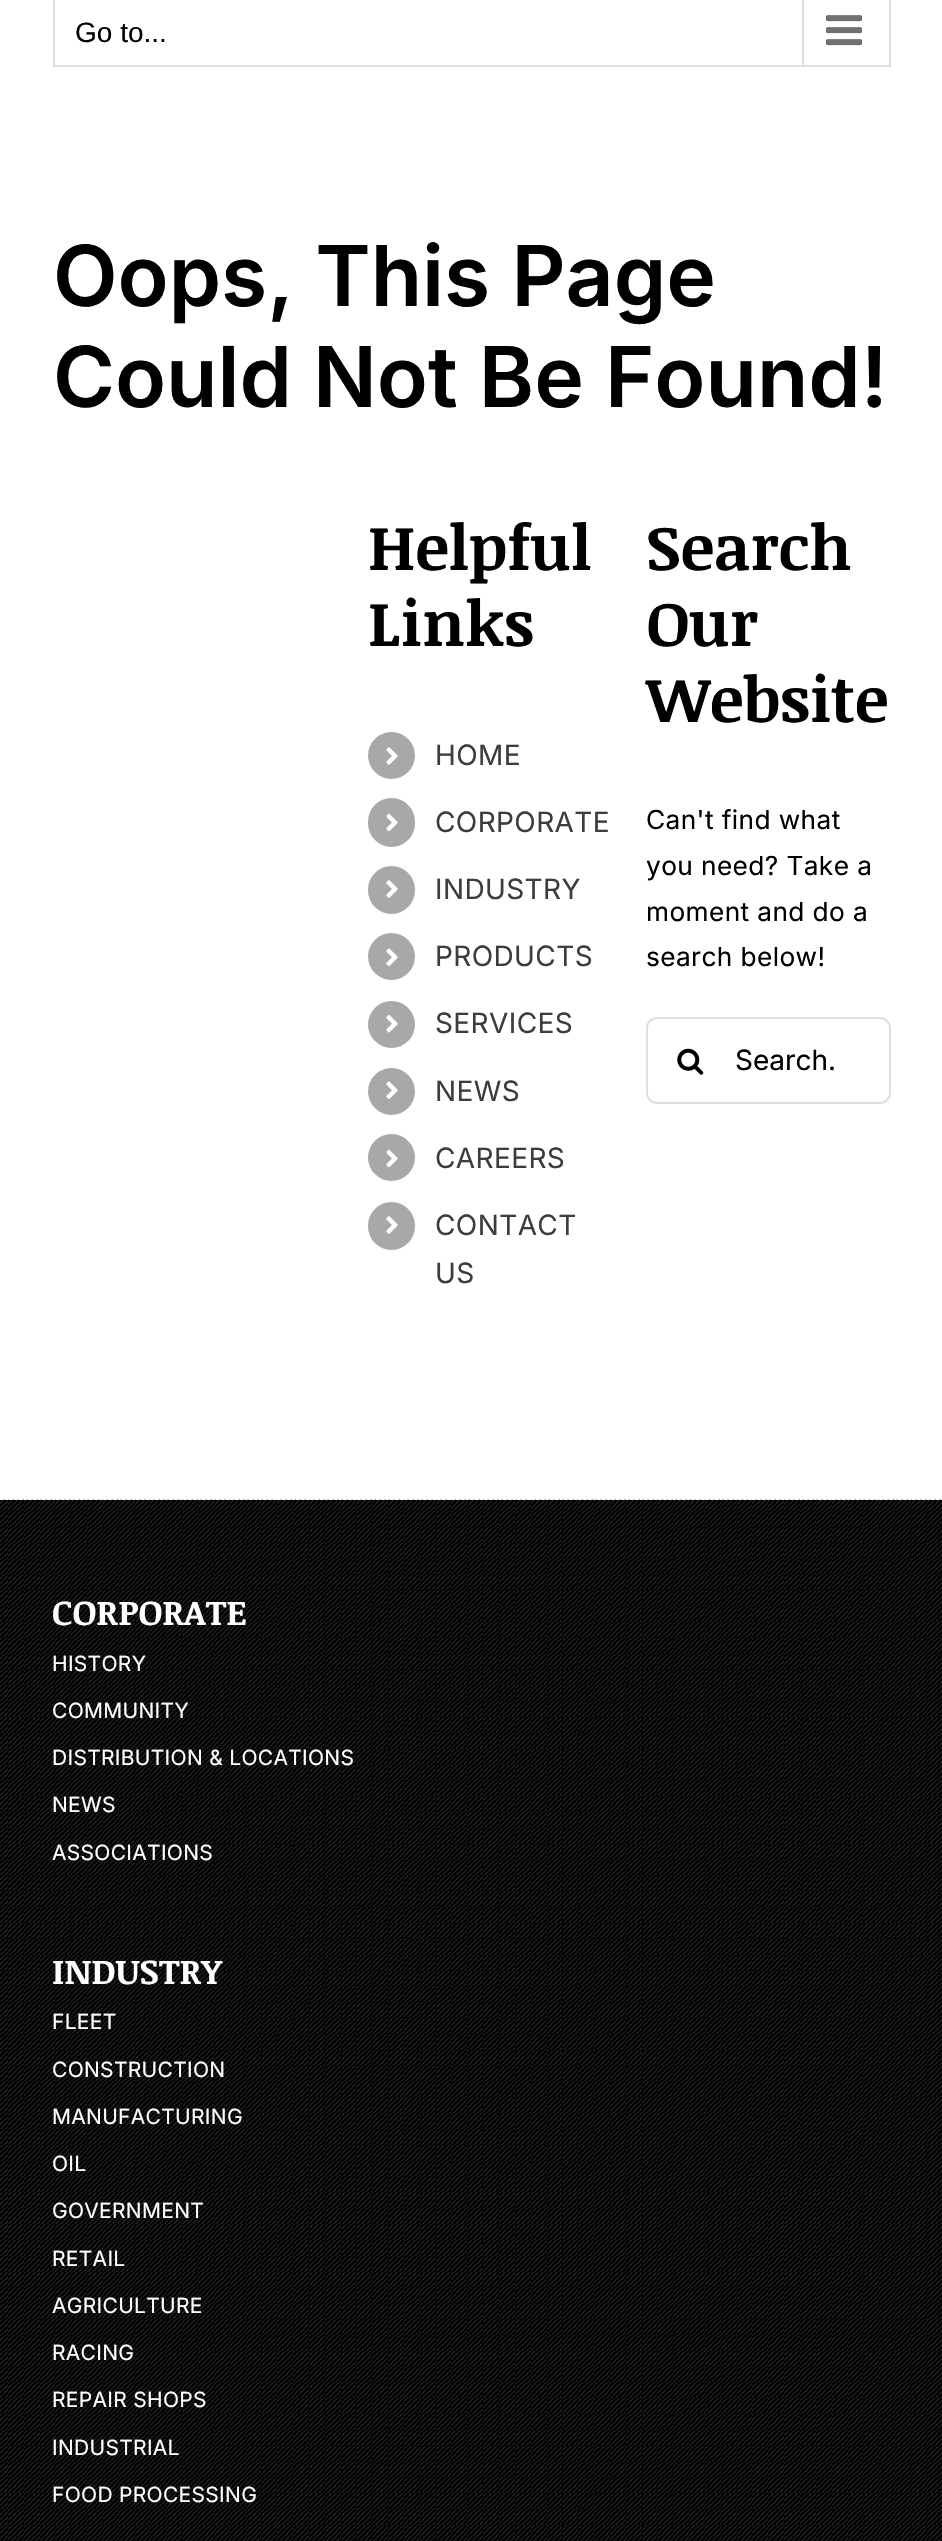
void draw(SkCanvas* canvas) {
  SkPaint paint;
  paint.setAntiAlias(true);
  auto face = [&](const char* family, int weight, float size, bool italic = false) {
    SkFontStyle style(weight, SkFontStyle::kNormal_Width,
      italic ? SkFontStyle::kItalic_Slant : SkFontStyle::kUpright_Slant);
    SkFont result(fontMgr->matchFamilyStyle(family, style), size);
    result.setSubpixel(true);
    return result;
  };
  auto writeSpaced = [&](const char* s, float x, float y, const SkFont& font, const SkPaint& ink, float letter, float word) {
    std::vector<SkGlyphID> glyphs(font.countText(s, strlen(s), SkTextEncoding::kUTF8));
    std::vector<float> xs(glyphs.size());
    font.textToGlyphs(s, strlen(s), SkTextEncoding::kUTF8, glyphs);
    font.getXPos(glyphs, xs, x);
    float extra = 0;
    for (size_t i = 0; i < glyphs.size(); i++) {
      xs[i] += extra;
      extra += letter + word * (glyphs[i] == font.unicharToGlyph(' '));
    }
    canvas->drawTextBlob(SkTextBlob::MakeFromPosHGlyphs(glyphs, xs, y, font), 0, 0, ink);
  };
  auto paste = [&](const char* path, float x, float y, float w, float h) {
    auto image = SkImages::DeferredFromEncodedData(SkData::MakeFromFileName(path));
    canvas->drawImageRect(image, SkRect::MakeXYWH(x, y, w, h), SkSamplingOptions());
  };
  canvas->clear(0xffffffff);
  paint.setStroke(true);
  paint.setStrokeWidth(2);
  paint.setColor(0xffe0e0e0);
  canvas->drawRect(SkRect::MakeXYWH(54, -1, 836, 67), paint);
  paint.setStroke(false);
  canvas->drawRect(SkRect::MakeXYWH(802, 0, 2, 65), paint);
  paste("img/1.png", 826, 15, 36, 31);
  paint.setColor(0xffa8a8a8);
  canvas->drawCircle(391.5f, 755.5f, 23.5f, paint);
  paste("img/2.png", 386, 747, 12, 18);
  canvas->drawRoundRect(SkRect::MakeXYWH(368, 798, 47, 49), 23.5f, 23.5f, paint);
  paste("img/3.png", 386, 813, 12, 19);
  canvas->drawRoundRect(SkRect::MakeXYWH(368, 866, 47, 48), 23.5f, 23.5f, paint);
  paste("img/2.png", 386, 880, 12, 18);
  canvas->drawCircle(391.5f, 956.5f, 23.5f, paint);
  paste("img/4.png", 386, 948, 12, 18);
  canvas->drawCircle(391.5f, 1024.5f, 23.5f, paint);
  paste("img/5.png", 386, 1015, 12, 18);
  canvas->drawCircle(391.5f, 1091.5f, 23.5f, paint);
  paste("img/4.png", 386, 1081, 12, 18);
  canvas->drawCircle(391.5f, 1157.5f, 23.5f, paint);
  paste("img/3.png", 386, 1149, 12, 19);
  canvas->drawRoundRect(SkRect::MakeXYWH(368, 1202, 47, 48), 23.5f, 23.5f, paint);
  paste("img/2.png", 386, 1216, 12, 18);
  paint.setStroke(true);
  paint.setColor(0xffe0e0e0);
  canvas->drawRoundRect(SkRect::MakeXYWH(647, 1018, 243, 85), 10, 10, paint);
  paste("img/6.png", 677, 1048, 27, 27);
  paint.setStroke(false);
  paint.setColor(0xff000000);
  canvas->drawRect(SkRect::MakeXYWH(0, 1500, 942, 1041), paint);
  paste("img/7.png", 0, 1499, 942, 1042);
  auto f0 = face("Liberation Sans", 400, 28);
  canvas->drawString("Go to...", 75, 42, f0, paint);
  auto f1 = face("Inter", 600, 84);
  canvas->drawString("Oops, This Page", 53, 306, f1, paint);
  canvas->drawString("Could Not Be Found!", 53, 407, f1, paint);
  auto f2 = face("Noticia Text", 700, 63);
  canvas->drawString("Helpful", 368, 570, f2, paint);
  canvas->drawString("Links", 368, 646, f2, paint);
  auto f3 = face("Inter", 400, 28);
  paint.setColor(0xff3d3d3d);
  {
    const struct { const char* s; float x, y; } items[] = {
      {"HOME", 435, 765},
      {"CORPORATE", 435, 832},
      {"INDUSTRY", 435, 899},
      {"PRODUCTS", 435, 966},
      {"SERVICES", 435, 1033},
      {"NEWS", 435, 1101},
      {"CAREERS", 435, 1168},
      {"CONTACT", 435, 1235},
      {"US", 435, 1283},
    };
    for (auto [s, x, y] : items) {
      writeSpaced(s, x, y, f3, paint, 0.4f, 0);
    }
  }
  paint.setColor(0xff000000);
  {
    const struct { const char* s; float x, y; } items[] = {
      {"Search", 646, 570},
      {"Our", 646, 646},
      {"Website", 646, 722},
    };
    for (auto [s, x, y] : items) {
      canvas->drawString(s, x, y, f2, paint);
    }
  }
  auto f4 = face("Inter", 400, 26.25f);
  {
    const struct { const char* s; float x, y; } items[] = {
      {"Can't find what", 646, 829},
      {"you need? Take a", 646, 875},
      {"moment and do a", 646, 921},
      {"search below!", 646, 966},
    };
    for (auto [s, x, y] : items) {
      writeSpaced(s, x, y, f4, paint, 0.4f, 0);
    }
  }
  canvas->drawString("Search.", 735, 1070, f3, paint);
  auto f5 = face("Noticia Text", 700, 35);
  paint.setColor(0xffffffff);
  canvas->drawString("CORPORATE", 52, 1625, f5, paint);
  auto f6 = face("Inter", 400, 21);
  {
    const struct { const char* s; float x, y; } items[] = {
      {"HISTORY", 52, 1671},
      {"COMMUNITY", 52, 1718},
      {"DISTRIBUTION & LOCATIONS", 52, 1765},
      {"NEWS", 52, 1812},
      {"ASSOCIATIONS", 52, 1860},
    };
    for (auto [s, x, y] : items) {
      writeSpaced(s, x, y, f6, paint, 0.3f, 0);
    }
  }
  canvas->drawString("INDUSTRY", 52, 1984, f5, paint);
  {
    const struct { const char* s; float x, y; } items[] = {
      {"FLEET", 52, 2029},
      {"CONSTRUCTION", 52, 2077},
      {"MANUFACTURING", 52, 2124},
      {"OIL", 52, 2171},
      {"GOVERNMENT", 52, 2218},
      {"RETAIL", 52, 2266},
      {"AGRICULTURE", 52, 2313},
      {"RACING", 52, 2360},
      {"REPAIR SHOPS", 52, 2407},
      {"INDUSTRIAL", 52, 2455},
      {"FOOD PROCESSING", 52, 2502},
    };
    for (auto [s, x, y] : items) {
      writeSpaced(s, x, y, f6, paint, 0.3f, 0);
    }
  }
}
